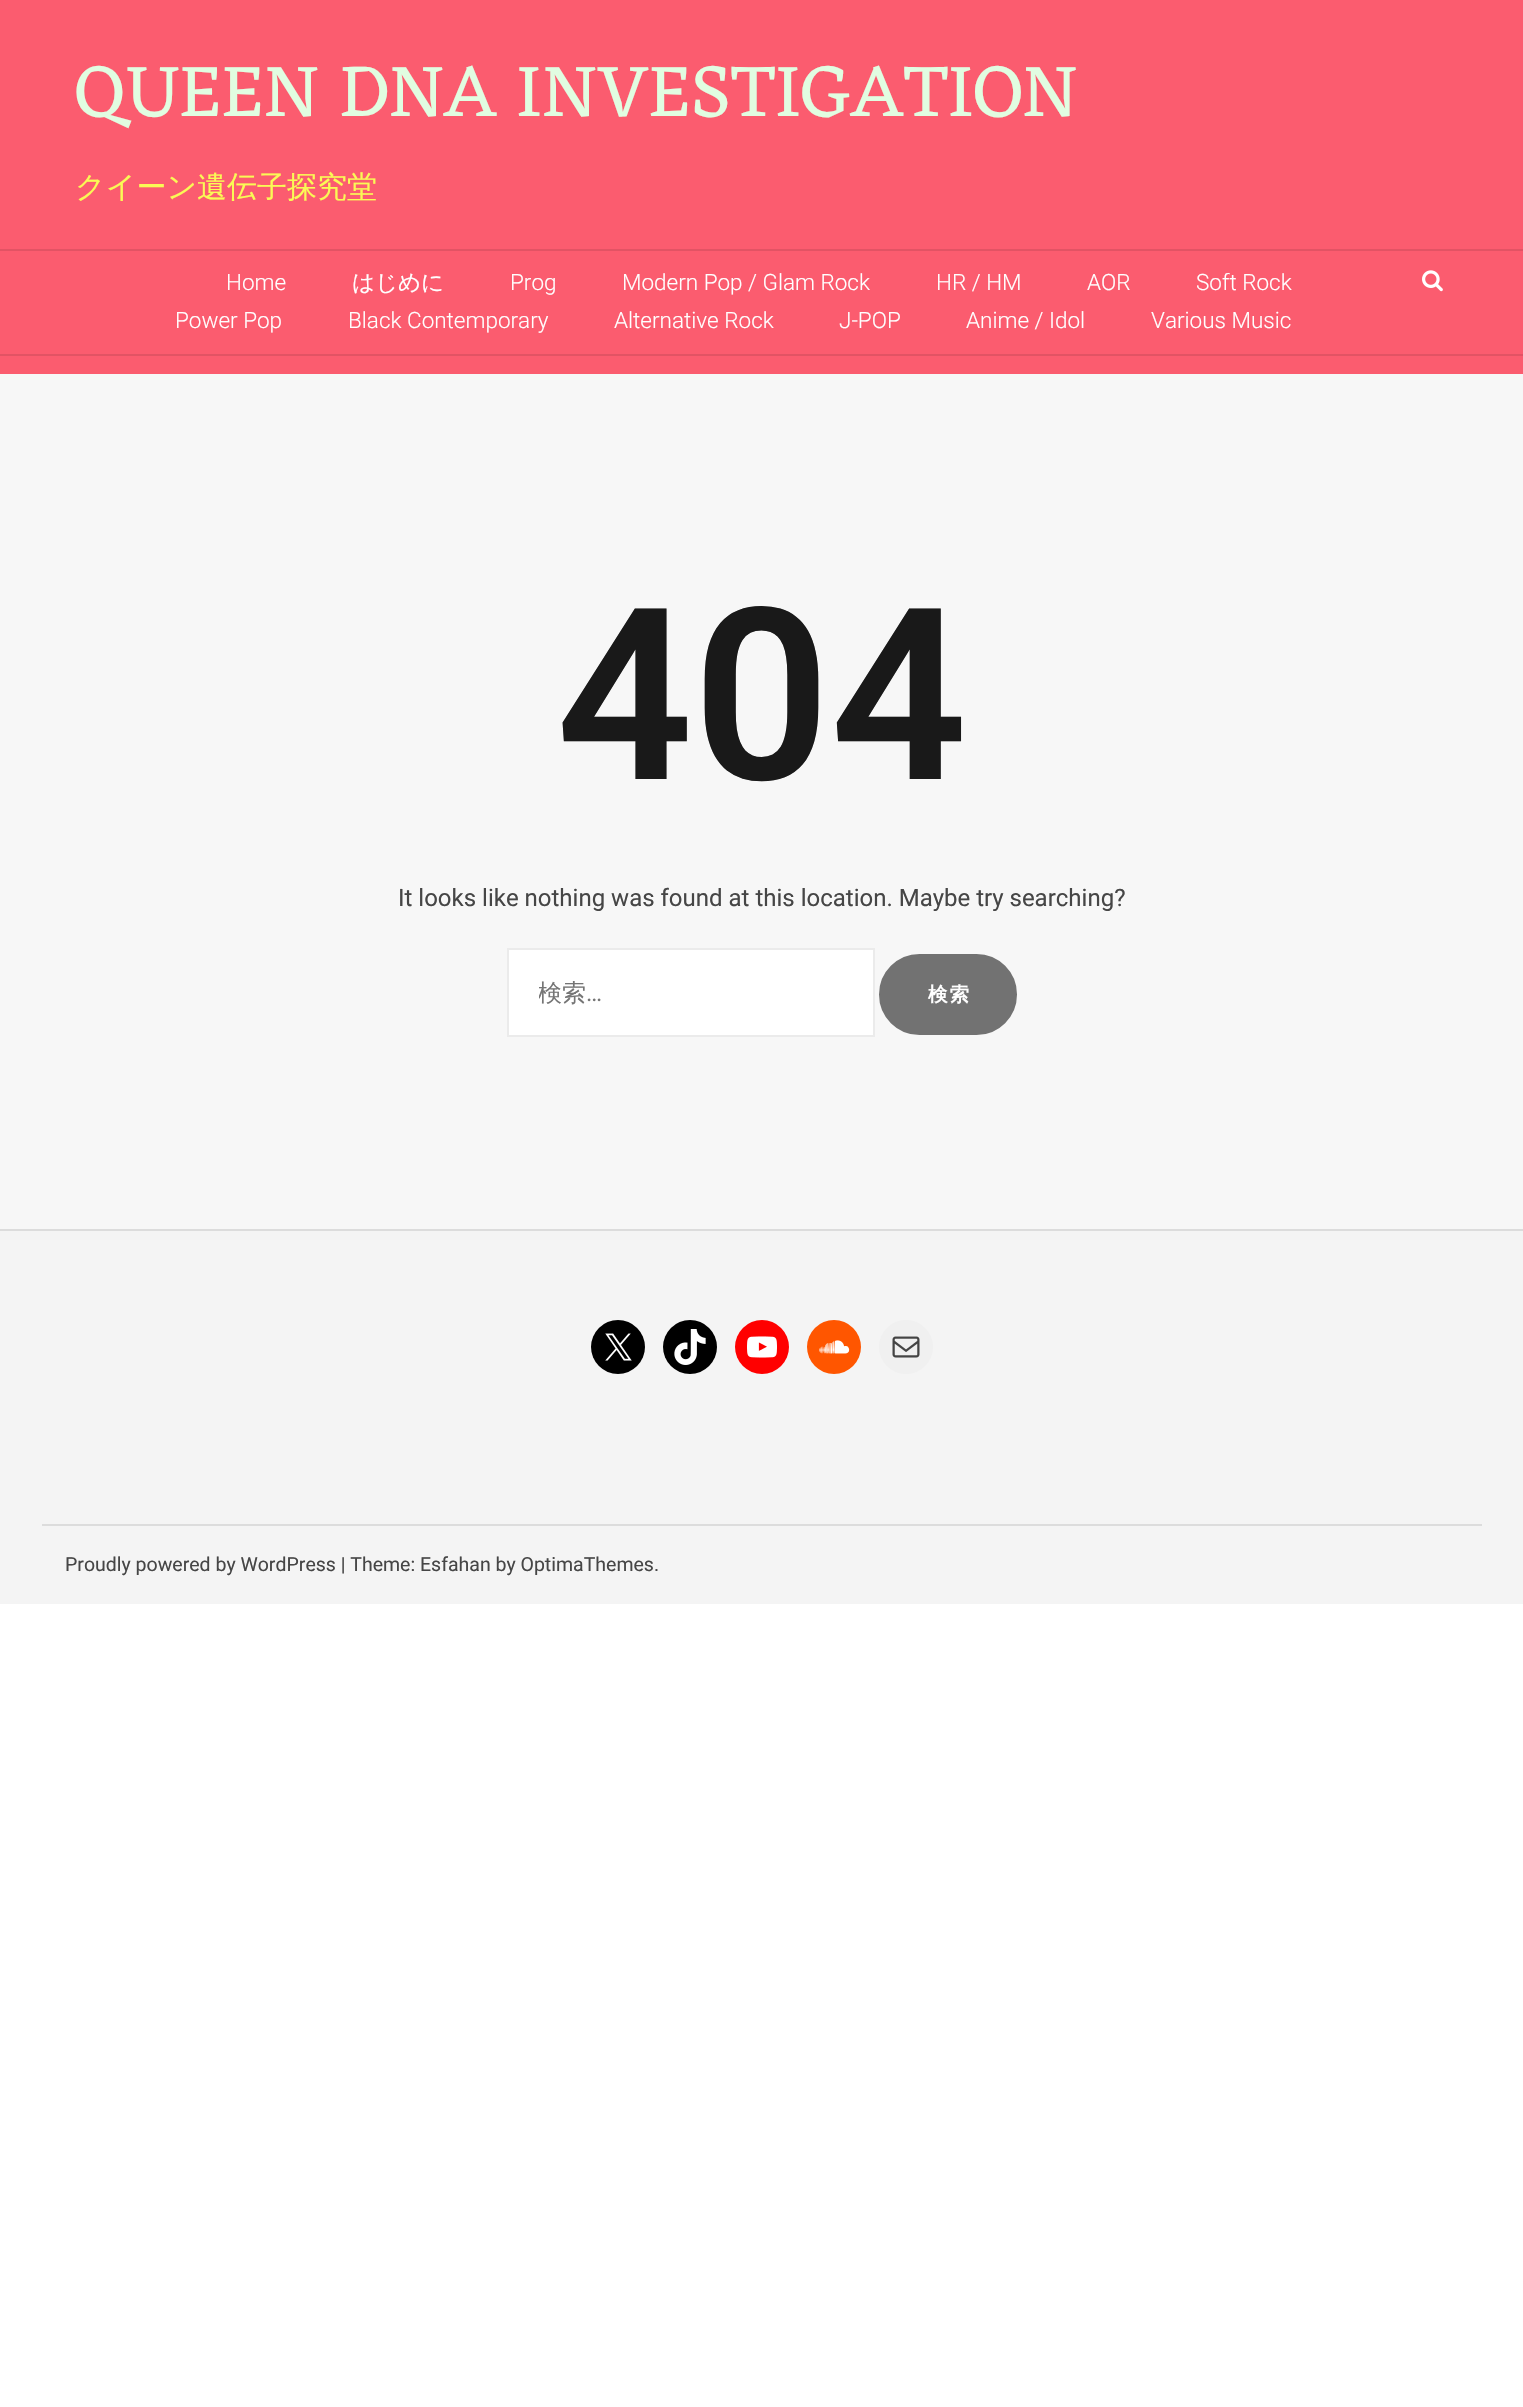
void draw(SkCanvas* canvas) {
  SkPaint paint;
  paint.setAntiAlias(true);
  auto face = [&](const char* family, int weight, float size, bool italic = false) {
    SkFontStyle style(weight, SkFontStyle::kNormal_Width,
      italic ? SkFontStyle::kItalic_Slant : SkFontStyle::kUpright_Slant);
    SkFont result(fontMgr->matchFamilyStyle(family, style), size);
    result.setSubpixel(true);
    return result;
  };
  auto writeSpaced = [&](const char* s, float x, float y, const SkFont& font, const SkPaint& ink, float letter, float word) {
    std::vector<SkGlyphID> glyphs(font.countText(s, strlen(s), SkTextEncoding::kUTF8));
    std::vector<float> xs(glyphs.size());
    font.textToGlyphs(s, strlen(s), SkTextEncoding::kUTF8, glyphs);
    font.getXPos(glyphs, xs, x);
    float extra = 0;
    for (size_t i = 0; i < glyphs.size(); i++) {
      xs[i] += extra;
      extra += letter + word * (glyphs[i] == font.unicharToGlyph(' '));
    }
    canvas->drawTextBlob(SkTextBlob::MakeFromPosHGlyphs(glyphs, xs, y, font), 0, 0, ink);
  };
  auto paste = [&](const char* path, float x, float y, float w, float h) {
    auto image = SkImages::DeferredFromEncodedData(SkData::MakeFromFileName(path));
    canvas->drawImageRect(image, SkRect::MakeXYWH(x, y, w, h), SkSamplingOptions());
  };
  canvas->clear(0xffffffff);
  {
    const struct { float x, y, w, h; SkColor color; } items[] = {
      {0, 0, 1523, 374, 0xfffb5c6f},
      {0, 249, 1523, 2, 0xffe25364},
      {0, 354, 1523, 2, 0xffe25364},
    };
    for (auto [x, y, w, h, color] : items) {
      paint.setColor(color);
      canvas->drawRect(SkRect::MakeXYWH(x, y, w, h), paint);
    }
  }
  paste("img/1.png", 1422, 270, 21, 22);
  paint.setColor(0xfff7f7f7);
  canvas->drawRect(SkRect::MakeXYWH(0, 374, 1523, 855), paint);
  paint.setColor(0xffffffff);
  canvas->drawRect(SkRect::MakeXYWH(508, 949, 366, 87), paint);
  paint.setStroke(true);
  paint.setStrokeWidth(2);
  paint.setColor(0xffebebeb);
  canvas->drawRect(SkRect::MakeXYWH(508, 949, 366, 87), paint);
  paint.setStroke(false);
  paint.setColor(0xff727272);
  canvas->drawRoundRect(SkRect::MakeXYWH(880.5f, 955.5f, 135, 78), 39, 39, paint);
  paint.setStroke(true);
  paint.setStrokeWidth(3);
  canvas->drawRoundRect(SkRect::MakeXYWH(880.5f, 955.5f, 135, 78), 39, 39, paint);
  paint.setStroke(false);
  paint.setColor(0xfff4f4f4);
  canvas->drawRect(SkRect::MakeXYWH(0, 1231, 1523, 373), paint);
  paint.setColor(0xffdcdcdc);
  canvas->drawRect(SkRect::MakeXYWH(0, 1229, 1523, 2), paint);
  paint.setColor(0xff000000);
  canvas->drawCircle(618, 1347, 27, paint);
  paste("img/2.png", 605, 1333, 27, 28);
  canvas->drawCircle(690, 1347, 27, paint);
  paste("img/3.png", 674, 1329, 32, 36);
  paint.setColor(0xffff0000);
  canvas->drawCircle(762, 1347, 27, paint);
  paste("img/4.png", 747, 1336, 30, 22);
  paint.setColor(0xffff5600);
  canvas->drawCircle(834, 1347, 27, paint);
  paste("img/5.png", 819, 1340, 31, 14);
  paint.setColor(0xfff0f0f0);
  canvas->drawCircle(906, 1347, 27, paint);
  paste("img/6.png", 892, 1336, 28, 22);
  paint.setColor(0xffdcdcdc);
  canvas->drawRect(SkRect::MakeXYWH(42, 1524, 1440, 2), paint);
  auto f0 = face("Eczar", 400, 75);
  paint.setColor(0xffe1fde1);
  canvas->drawString("QUEEN DNA INVESTIGATION", 75, 116, f0, paint);
  auto f1 = face("WenQuanYi Zen Hei", 500, 30);
  paint.setColor(0xfffafa55);
  canvas->drawString("クイーン遺伝子探究堂", 75, 197, f1, paint);
  auto f2 = face("Roboto", 300, 22.5f);
  paint.setColor(0xffffffff);
  canvas->drawString("Home", 226, 290, f2, paint);
  auto f3 = face("WenQuanYi Zen Hei", 500, 22.5f);
  canvas->drawString("はじめに", 352, 290, f3, paint);
  {
    const struct { const char* s; float x, y; } items[] = {
      {"Prog", 510, 290},
      {"Modern Pop / Glam Rock", 622, 290},
      {"HR / HM", 936, 290},
      {"AOR", 1087, 290},
      {"Soft Rock", 1196, 290},
      {"Power Pop", 175, 328},
      {"Black Contemporary", 348, 328},
      {"Alternative Rock", 614, 328},
      {"J-POP", 839, 328},
      {"Anime / Idol", 966, 328},
      {"Various Music", 1151, 328},
    };
    for (auto [s, x, y] : items) {
      canvas->drawString(s, x, y, f2, paint);
    }
  }
  auto f4 = face("Roboto", 600, 240);
  paint.setColor(0xff191919);
  canvas->drawString("404", 556, 779, f4, paint);
  auto f5 = face("Roboto", 400, 24);
  paint.setColor(0xff464646);
  canvas->drawString("It looks like nothing was found at this location. Maybe try searching?", 398, 906, f5, paint);
  canvas->save();
  canvas->clipRect(SkRect::MakeXYWH(539, 978, 298, 32));
  auto f6 = face("WenQuanYi Zen Hei", 500, 24);
  paint.setColor(0xff757575);
  canvas->drawString("検索", 538, 1001, f6, paint);
  canvas->restore();
  canvas->drawString("…", 586, 1001, f5, paint);
  auto f7 = face("WenQuanYi Zen Hei", 700, 19.5f);
  paint.setColor(0xffffffff);
  writeSpaced("検索", 928, 1001, f7, paint, 2, 0);
  auto f8 = face("Roboto", 400, 19.5f);
  paint.setColor(0xff464646);
  canvas->drawString("Proudly powered by WordPress | Theme: Esfahan by OptimaThemes.", 65, 1571, f8, paint);
}
